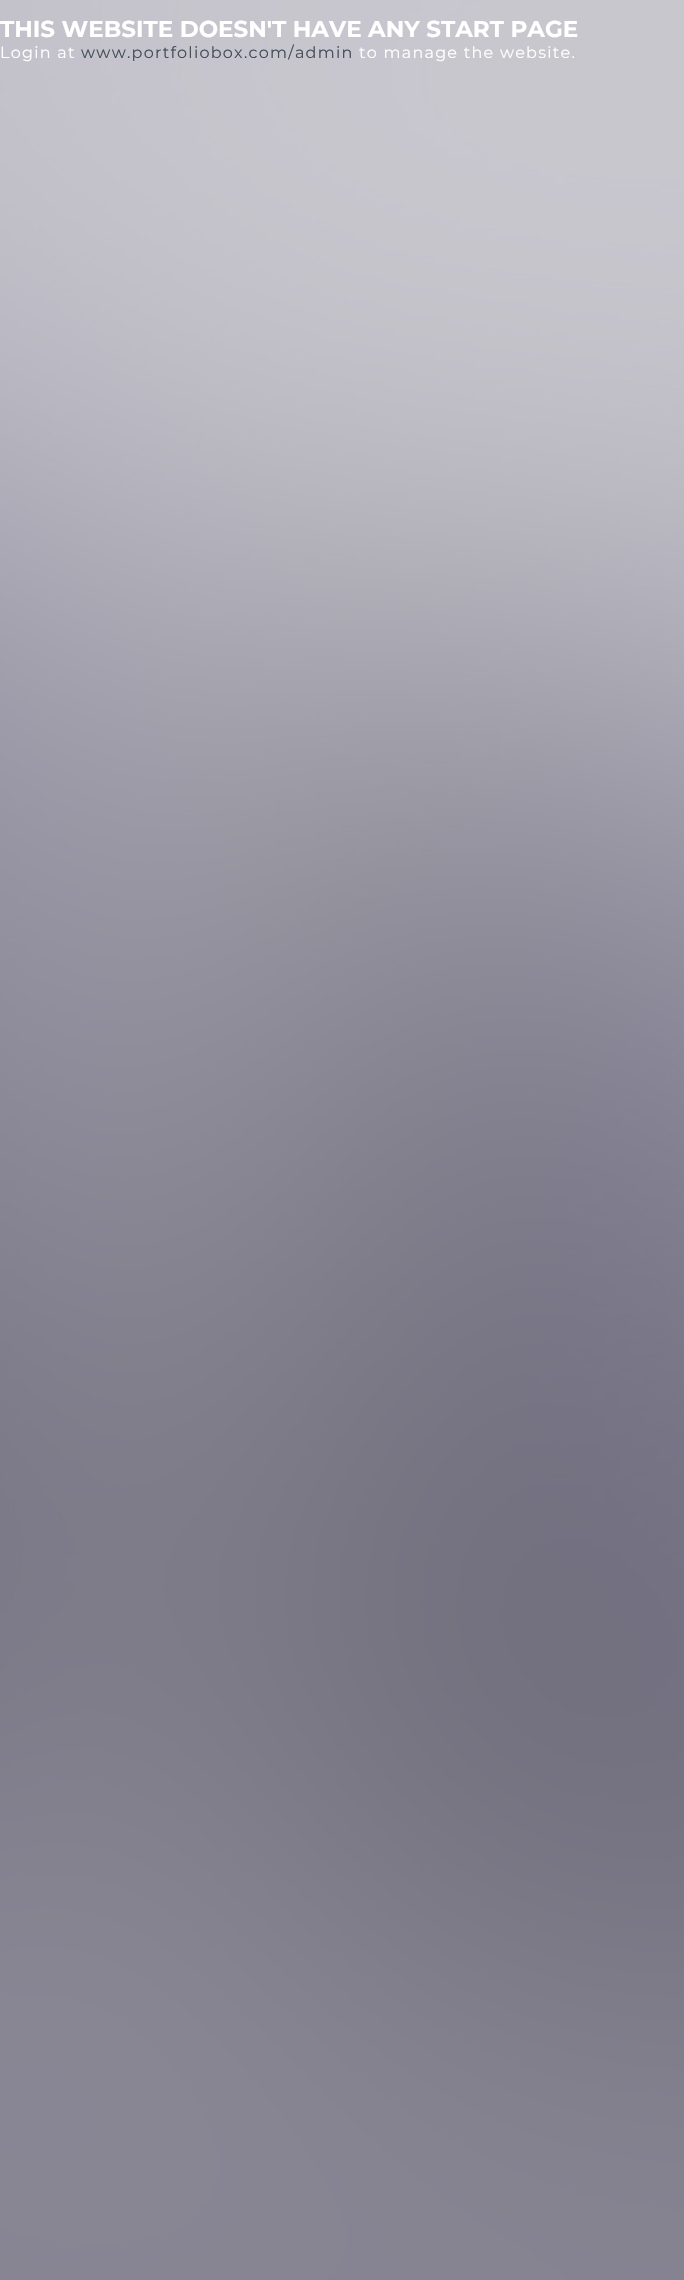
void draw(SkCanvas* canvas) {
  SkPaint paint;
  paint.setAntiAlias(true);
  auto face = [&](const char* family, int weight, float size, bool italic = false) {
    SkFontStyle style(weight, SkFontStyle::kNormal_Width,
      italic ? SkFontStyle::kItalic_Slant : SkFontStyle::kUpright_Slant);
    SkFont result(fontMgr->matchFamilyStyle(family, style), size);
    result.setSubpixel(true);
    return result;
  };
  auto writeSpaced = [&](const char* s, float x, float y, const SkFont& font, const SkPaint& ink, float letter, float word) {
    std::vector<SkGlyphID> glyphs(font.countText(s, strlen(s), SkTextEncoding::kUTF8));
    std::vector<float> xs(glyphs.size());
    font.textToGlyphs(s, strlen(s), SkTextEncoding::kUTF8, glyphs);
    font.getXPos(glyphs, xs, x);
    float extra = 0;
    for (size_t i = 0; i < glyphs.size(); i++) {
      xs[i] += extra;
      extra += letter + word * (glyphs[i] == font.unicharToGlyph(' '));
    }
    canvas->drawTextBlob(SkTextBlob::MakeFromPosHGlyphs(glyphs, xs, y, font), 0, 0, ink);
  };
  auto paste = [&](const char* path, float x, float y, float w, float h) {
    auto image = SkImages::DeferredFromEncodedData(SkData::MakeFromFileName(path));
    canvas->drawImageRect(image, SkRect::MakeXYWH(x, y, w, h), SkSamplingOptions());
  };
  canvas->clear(0xffffffff);
  paste("img/1.png", 0, 0, 684, 2280);
  auto f0 = face("Montserrat", 700, 23);
  paint.setColor(0xffffffff);
  canvas->drawString("THIS WEBSITE DOESN'T HAVE ANY START PAGE", 0, 37, f0, paint);
  auto f1 = face("Montserrat", 400, 16);
  writeSpaced("Login at", 0, 58, f1, paint, 1.25f, 0);
  paint.setColor(0xff434d57);
  writeSpaced("www.portfoliobox.com/admin", 81, 58, f1, paint, 1.25f, 0);
  paint.setColor(0xffffffff);
  writeSpaced("to manage the website.", 359, 58, f1, paint, 1.25f, 0);
}
